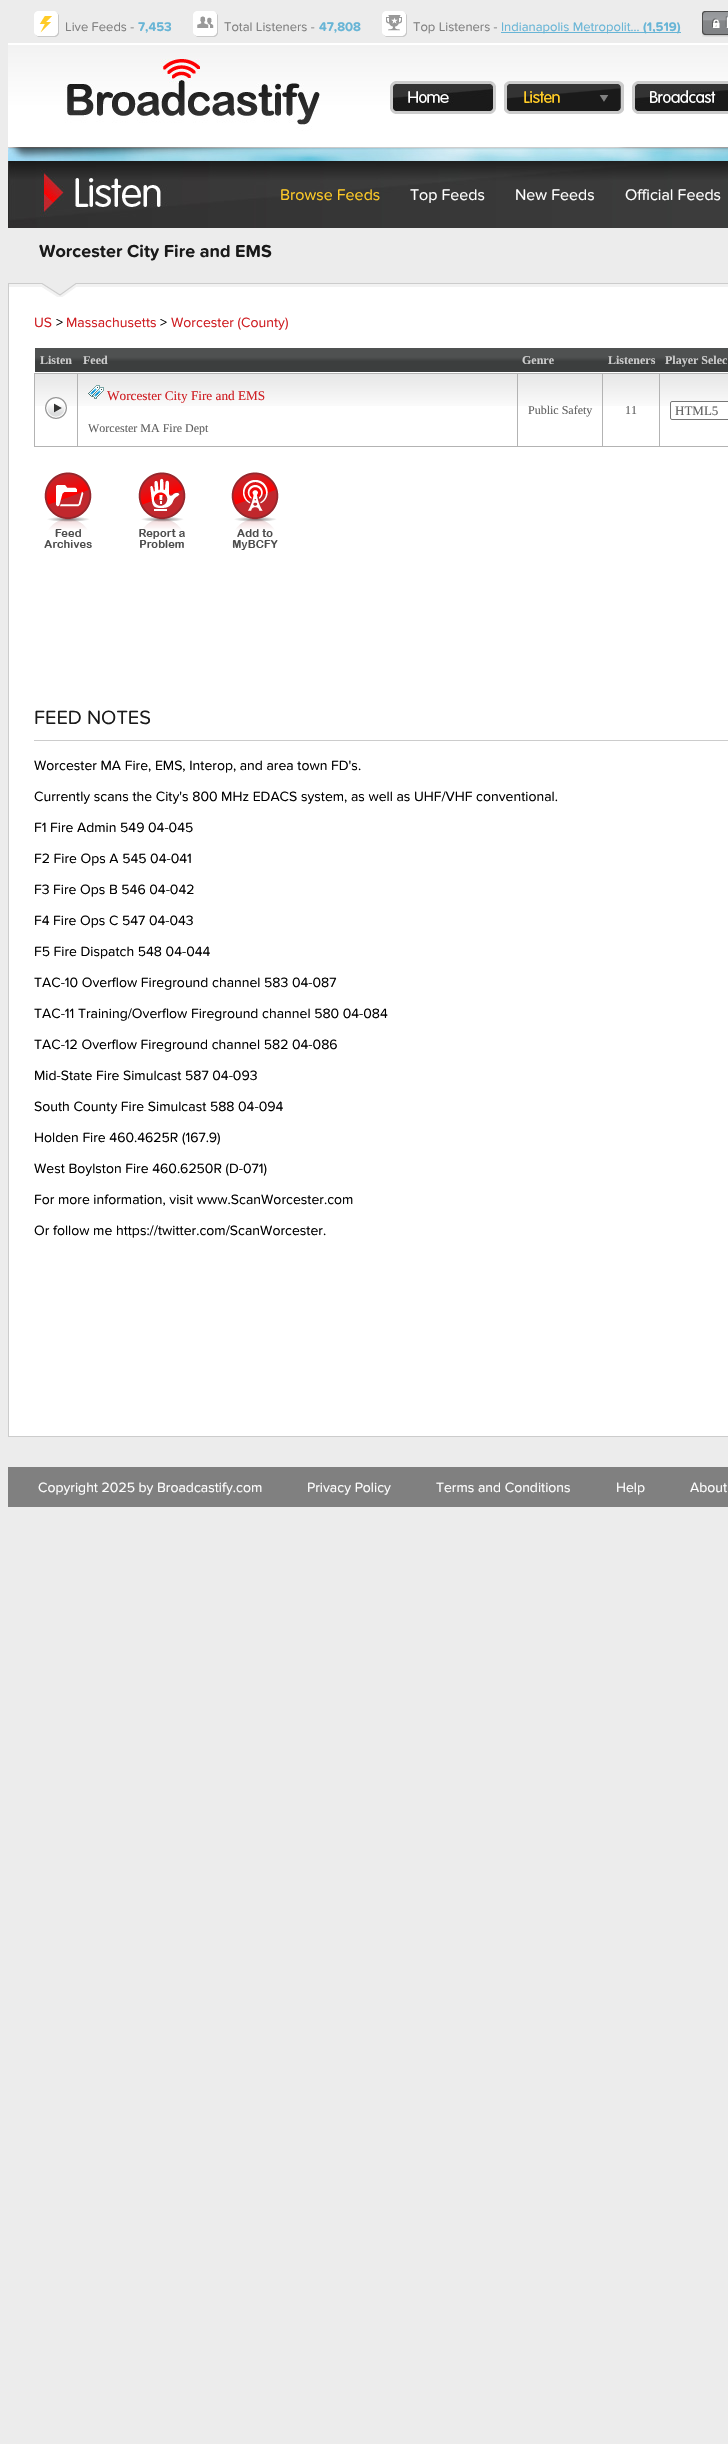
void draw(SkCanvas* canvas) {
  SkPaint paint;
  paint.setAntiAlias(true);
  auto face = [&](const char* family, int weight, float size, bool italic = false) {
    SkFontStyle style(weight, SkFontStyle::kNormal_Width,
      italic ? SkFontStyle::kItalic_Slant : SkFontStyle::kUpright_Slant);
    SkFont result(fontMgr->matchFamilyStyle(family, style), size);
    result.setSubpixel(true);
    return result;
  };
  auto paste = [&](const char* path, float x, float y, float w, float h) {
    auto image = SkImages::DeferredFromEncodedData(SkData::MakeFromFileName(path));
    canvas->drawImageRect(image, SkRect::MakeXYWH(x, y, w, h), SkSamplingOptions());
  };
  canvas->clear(0xffececec);
  paste("img/1.png", 34, 11, 25, 26);
  paste("img/2.png", 193, 11, 25, 26);
  paste("img/3.png", 382, 11, 25, 26);
  paint.setColor(0xff68b5d6);
  canvas->drawRect(SkRect::MakeXYWH(501, 32, 180, 1), paint);
  paste("img/4.png", 702, 11, 26, 26);
  paint.setColor(0xffffffff);
  canvas->drawRect(SkRect::MakeXYWH(8, 43, 720, 2), paint);
  paste("img/5.png", 8, 45, 720, 103);
  paste("img/6.png", 390, 81, 106, 33);
  paste("img/7.png", 504, 81, 120, 33);
  paste("img/8.png", 632, 81, 96, 33);
  paste("img/9.png", 8, 148, 720, 13);
  paste("img/10.png", 8, 161, 720, 67);
  paste("img/11.png", 8, 283, 720, 14);
  {
    const struct { float x, y, w, h; SkColor color; } items[] = {
      {9, 297, 719, 1139, 0xffffffff},
      {8, 1436, 720, 1, 0xffcccccc},
      {8, 297, 1, 1140, 0xffcccccc},
    };
    for (auto [x, y, w, h, color] : items) {
      paint.setColor(color);
      canvas->drawRect(SkRect::MakeXYWH(x, y, w, h), paint);
    }
  }
  paste("img/12.png", 35, 348, 43, 24);
  paste("img/13.png", 78, 348, 439, 24);
  paste("img/14.png", 517, 348, 86, 24);
  paste("img/15.png", 603, 348, 57, 24);
  paste("img/16.png", 660, 348, 68, 24);
  paste("img/17.png", 35, 374, 42, 32);
  {
    const struct { float x, y, w, h; SkColor color; } items[] = {
      {659, 373, 69, 1, 0xffb3b3b3},
      {659, 446, 69, 1, 0xffb3b3b3},
      {659, 373, 1, 74, 0xffb3b3b3},
      {602, 373, 58, 1, 0xffb3b3b3},
      {602, 446, 58, 1, 0xffb3b3b3},
      {602, 373, 1, 74, 0xffb3b3b3},
      {517, 373, 86, 1, 0xffb3b3b3},
      {517, 446, 86, 1, 0xffb3b3b3},
      {517, 373, 1, 74, 0xffb3b3b3},
      {77, 373, 441, 1, 0xffb3b3b3},
      {77, 446, 441, 1, 0xffb3b3b3},
      {77, 373, 1, 74, 0xffb3b3b3},
      {34, 373, 44, 1, 0xffb3b3b3},
      {34, 446, 44, 1, 0xffb3b3b3},
      {34, 373, 1, 74, 0xffb3b3b3},
    };
    for (auto [x, y, w, h, color] : items) {
      paint.setColor(color);
      canvas->drawRect(SkRect::MakeXYWH(x, y, w, h), paint);
    }
  }
  paste("img/18.png", 45, 397, 22, 22);
  paste("img/19.png", 78, 374, 439, 32);
  paste("img/20.png", 88, 385, 16, 14);
  paste("img/21.png", 518, 374, 84, 32);
  paste("img/22.png", 603, 374, 56, 32);
  paste("img/23.png", 660, 374, 68, 32);
  paint.setColor(0xffffffff);
  canvas->drawRoundRect(SkRect::MakeXYWH(670.5f, 401.5f, 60, 18), 1.5f, 1.5f, paint);
  paint.setStroke(true);
  paint.setStrokeWidth(1);
  paint.setColor(0xff767676);
  canvas->drawRoundRect(SkRect::MakeXYWH(670.5f, 401.5f, 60, 18), 1.5f, 1.5f, paint);
  paste("img/24.png", 44, 472, 48, 76);
  paste("img/25.png", 138, 472, 48, 76);
  paste("img/26.png", 231, 472, 48, 78);
  paint.setStroke(false);
  paint.setColor(0xffcccccc);
  canvas->drawRect(SkRect::MakeXYWH(34, 740, 694, 1), paint);
  paint.setColor(0xff808080);
  canvas->drawRect(SkRect::MakeXYWH(8, 1467, 720, 40), paint);
  auto f0 = face("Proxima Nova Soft", 400, 13);
  canvas->drawString("Live Feeds -", 65, 31, f0, paint);
  auto f1 = face("Proxima Nova Soft", 700, 13);
  paint.setColor(0xff68b5d6);
  canvas->drawString("7,453", 138, 31, f1, paint);
  paint.setColor(0xff808080);
  canvas->drawString("Total Listeners -", 224, 31, f0, paint);
  paint.setColor(0xff68b5d6);
  canvas->drawString("47,808", 319, 31, f1, paint);
  paint.setColor(0xff808080);
  canvas->drawString("Top Listeners -", 413, 31, f0, paint);
  paint.setColor(0xff68b5d6);
  canvas->drawString("Indianapolis Metropolit...", 501, 31, f0, paint);
  canvas->drawString("(1,519)", 643, 31, f1, paint);
  auto f2 = face("Proxima Nova Soft", 400, 16);
  paint.setColor(0xffffcb27);
  canvas->drawString("Browse Feeds", 280, 200, f2, paint);
  paint.setColor(0xffffffff);
  {
    const struct { const char* s; float x, y; } items[] = {
      {"Top Feeds", 410, 200},
      {"New Feeds", 515, 200},
      {"Official Feeds", 625, 200},
    };
    for (auto [s, x, y] : items) {
      canvas->drawString(s, x, y, f2, paint);
    }
  }
  auto f3 = face("Proxima Nova Soft", 700, 18);
  paint.setColor(0xff1a1a1a);
  canvas->drawString("Worcester City Fire and EMS", 39, 257, f3, paint);
  auto f4 = face("Proxima Nova Soft", 400, 14);
  paint.setColor(0xffcf1e23);
  canvas->drawString("US", 34, 327, f4, paint);
  paint.setColor(0xff000000);
  canvas->drawString(">", 56, 327, f4, paint);
  paint.setColor(0xffcf1e23);
  canvas->drawString("Massachusetts", 66, 327, f4, paint);
  paint.setColor(0xff000000);
  canvas->drawString(">", 160, 327, f4, paint);
  paint.setColor(0xffcf1e23);
  canvas->drawString("Worcester (County)", 171, 327, f4, paint);
  auto f5 = face("Liberation Serif", 700, 12);
  paint.setColor(0xffcccccc);
  {
    const struct { const char* s; float x, y; } items[] = {
      {"Listen", 40, 364},
      {"Feed", 83, 364},
      {"Genre", 522, 364},
      {"Listeners", 608, 364},
      {"Player Selec", 665, 364},
    };
    for (auto [s, x, y] : items) {
      canvas->drawString(s, x, y, f5, paint);
    }
  }
  auto f6 = face("Liberation Serif", 400, 13.25f);
  paint.setColor(0xffcf1e23);
  canvas->drawString("Worcester City Fire and EMS", 107, 400, f6, paint);
  auto f7 = face("Liberation Serif", 400, 12);
  paint.setColor(0xff606060);
  {
    const struct { const char* s; float x, y; } items[] = {
      {"Worcester MA Fire Dept", 88, 432},
      {"Public Safety", 528, 414},
      {"11", 625, 414},
    };
    for (auto [s, x, y] : items) {
      canvas->drawString(s, x, y, f7, paint);
    }
  }
  auto f8 = face("Liberation Serif", 400, 13);
  canvas->drawString("HTML5", 675, 415, f8, paint);
  auto f9 = face("Proxima Nova Soft", 400, 20);
  paint.setColor(0xff1a1a1a);
  canvas->drawString("FEED NOTES", 34, 724, f9, paint);
  paint.setColor(0xff000000);
  {
    const struct { const char* s; float x, y; } items[] = {
      {"Worcester MA Fire, EMS, Interop, and area town FD's.", 34, 770},
      {"Currently scans the City's 800 MHz EDACS system, as well as UHF/VHF conventional.", 34, 801},
      {"F1 Fire Admin 549 04-045", 34, 832},
      {"F2 Fire Ops A 545 04-041", 34, 863},
      {"F3 Fire Ops B 546 04-042", 34, 894},
      {"F4 Fire Ops C 547 04-043", 34, 925},
      {"F5 Fire Dispatch 548 04-044", 34, 956},
      {"TAC-10 Overflow Fireground channel 583 04-087", 34, 987},
      {"TAC-11 Training/Overflow Fireground channel 580 04-084", 34, 1018},
      {"TAC-12 Overflow Fireground channel 582 04-086", 34, 1049},
      {"Mid-State Fire Simulcast 587 04-093", 34, 1080},
      {"South County Fire Simulcast 588 04-094", 34, 1111},
      {"Holden Fire 460.4625R (167.9)", 34, 1142},
      {"West Boylston Fire 460.6250R (D-071)", 34, 1173},
      {"For more information, visit www.ScanWorcester.com", 34, 1204},
      {"Or follow me https://twitter.com/ScanWorcester.", 34, 1235},
    };
    for (auto [s, x, y] : items) {
      canvas->drawString(s, x, y, f4, paint);
    }
  }
  paint.setColor(0xffffffff);
  {
    const struct { const char* s; float x, y; } items[] = {
      {"Copyright 2025 by Broadcastify.com", 38, 1492},
      {"Privacy Policy", 307, 1492},
      {"Terms and Conditions", 436, 1492},
      {"Help", 616, 1492},
      {"About", 690, 1492},
    };
    for (auto [s, x, y] : items) {
      canvas->drawString(s, x, y, f4, paint);
    }
  }
}
